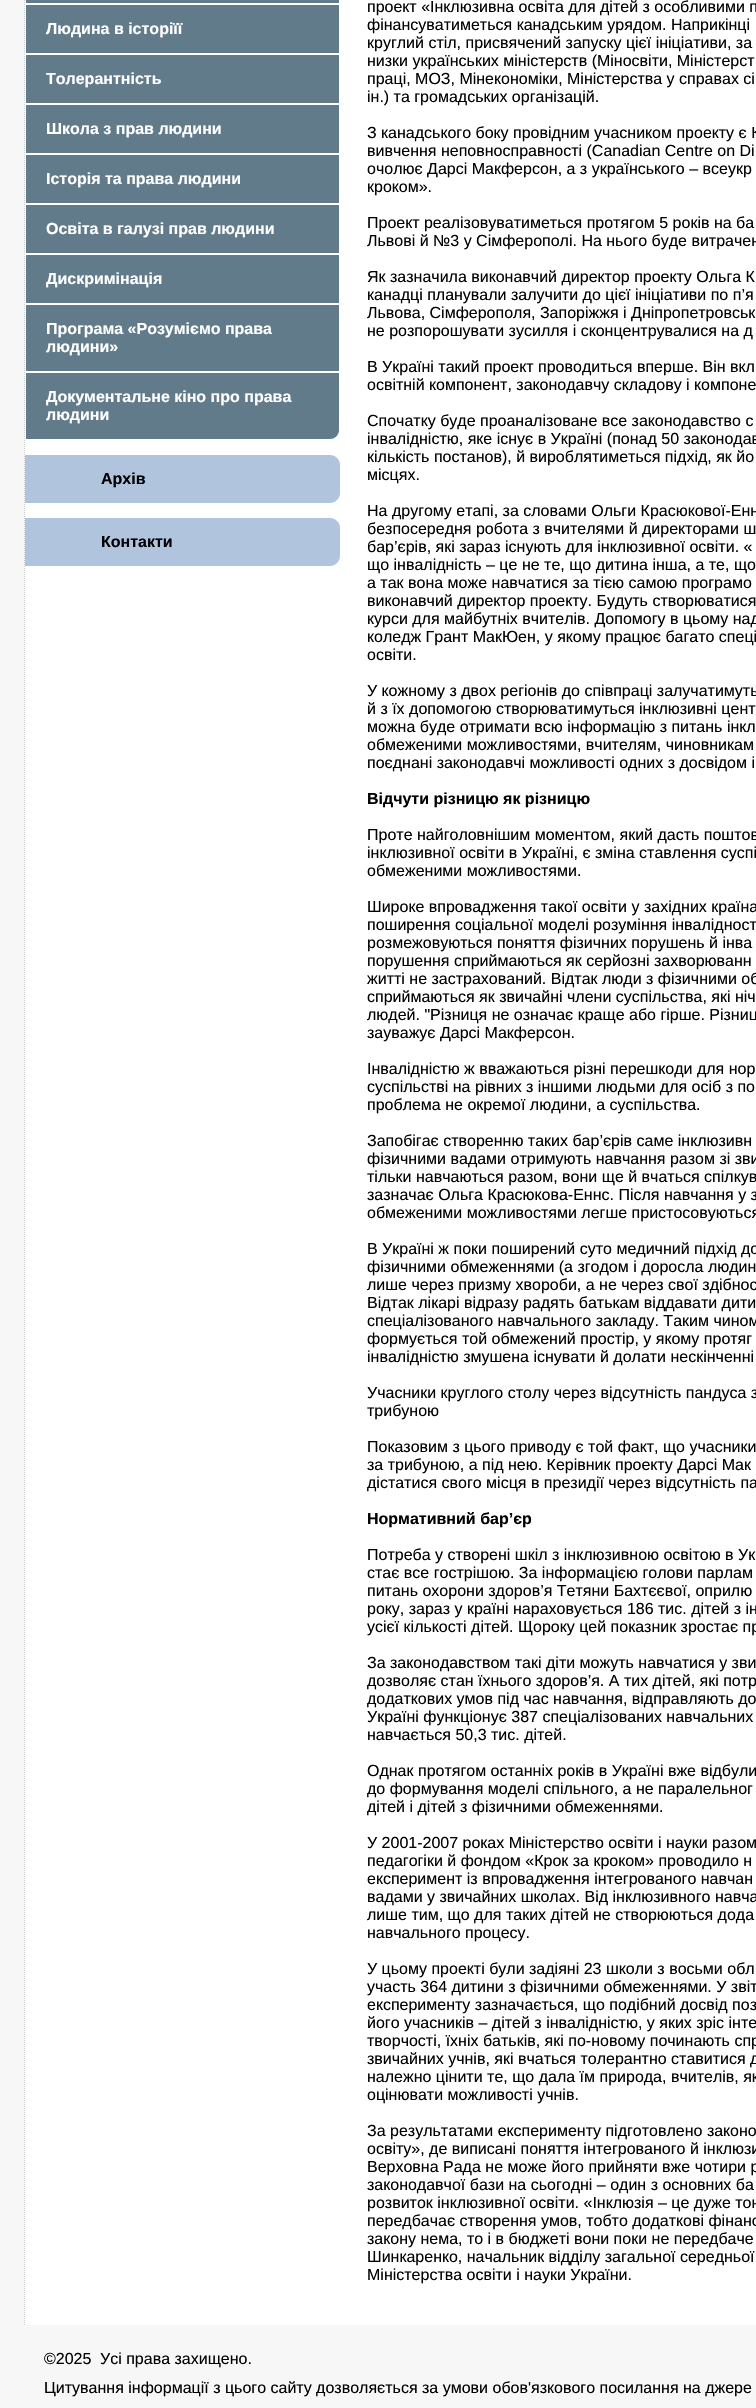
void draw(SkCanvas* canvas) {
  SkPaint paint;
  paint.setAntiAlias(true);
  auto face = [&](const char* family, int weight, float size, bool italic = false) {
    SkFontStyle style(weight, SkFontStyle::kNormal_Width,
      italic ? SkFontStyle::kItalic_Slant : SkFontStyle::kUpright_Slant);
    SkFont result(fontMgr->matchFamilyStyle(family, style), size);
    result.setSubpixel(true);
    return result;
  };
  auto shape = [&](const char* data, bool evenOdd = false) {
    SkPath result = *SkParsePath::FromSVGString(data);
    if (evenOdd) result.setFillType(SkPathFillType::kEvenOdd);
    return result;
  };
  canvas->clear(0xfff7f7f7);
  paint.setColor(0xffffffff);
  canvas->drawRect(SkRect::MakeXYWH(24, 0, 732, 2325), paint);
  paint.setStroke(true);
  paint.setStrokeWidth(1);
  paint.setColor(0xffcccccc);
  paint.setPathEffect(SkDashPathEffect::Make({{1, 1}}, 0));
  canvas->drawPath(shape("M24.5-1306V2325"), paint);
  paint.setPathEffect(nullptr);
  paint.setStroke(false);
  paint.setColor(0xff617b8a);
  canvas->drawRect(SkRect::MakeXYWH(25.5f, -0.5f, 314, 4), paint);
  paint.setStroke(true);
  paint.setColor(0xffffffff);
  canvas->drawRect(SkRect::MakeXYWH(25.5f, -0.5f, 314, 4), paint);
  paint.setStroke(false);
  {
    const struct { float x, y, w, h; SkColor color; } items[] = {
      {26, 5, 313, 48, 0xff617b8a},
      {26, 55, 313, 48, 0xff617b8a},
      {26, 105, 313, 48, 0xff617b8a},
      {26, 155, 313, 48, 0xff617b8a},
      {26, 205, 313, 48, 0xff617b8a},
      {26, 255, 313, 48, 0xff617b8a},
      {26, 305, 313, 66, 0xff617b8a},
    };
    for (auto [x, y, w, h, color] : items) {
      paint.setColor(color);
      canvas->drawRect(SkRect::MakeXYWH(x, y, w, h), paint);
    }
  }
  canvas->drawPath(shape("M25.5 372.5H339.5V430C339.5 435 335 439.5 330 439.5H25.5Z"), paint);
  paint.setStroke(true);
  paint.setColor(0xffffffff);
  canvas->drawPath(shape("M25.5 372.5H339.5V430C339.5 435 335 439.5 330 439.5H25.5Z"), paint);
  paint.setStroke(false);
  paint.setColor(0xffb0c4de);
  canvas->drawPath(shape("M25 455H330C335.5 455 340 459.5 340 465V493C340 498.5 335.5 503 330 503H25Z"), paint);
  canvas->drawPath(shape("M25 518H330C335.5 518 340 522.5 340 528V556C340 561.5 335.5 566 330 566H25Z"), paint);
  auto f0 = face("Liberation Sans", 700, 16);
  paint.setColor(0xffffffff);
  {
    const struct { const char* s; float x, y; } items[] = {
      {"Людина в історіїї", 46, 34},
      {"Толерантність", 46, 84},
      {"Школа з прав людини", 46, 134},
      {"Історія та права людини", 46, 184},
      {"Освіта в галузі прав людини", 46, 234},
      {"Дискримінація", 46, 284},
      {"Програма «Розуміємо права", 46, 334},
      {"людини»", 46, 352},
      {"Документальне кіно про права", 46, 402},
      {"людини", 46, 420},
    };
    for (auto [s, x, y] : items) {
      canvas->drawString(s, x, y, f0, paint);
    }
  }
  paint.setColor(0xff000000);
  canvas->drawString("Архів", 101, 484, f0, paint);
  canvas->drawString("Контакти", 101, 547, f0, paint);
  auto f1 = face("Liberation Sans", 400, 16);
  {
    const struct { const char* s; float x, y; } items[] = {
      {"проект «Інклюзивна освіта для дітей з особливими п", 367, 12},
      {"фінансуватиметься канадським урядом. Наприкінці", 367, 30},
      {"круглий стіл, присвячений запуску цієї ініціативи, за", 367, 48},
      {"низки українських міністерств (Міносвіти, Міністерст", 367, 66},
      {"праці, МОЗ, Мінекономіки, Міністерства у справах сі", 367, 84},
      {"ін.) та громадських організацій.", 367, 102},
      {"З канадського боку провідним учасником проекту є К", 367, 138},
      {"вивчення неповносправності (Canadian Centre on Di", 367, 156},
      {"очолює Дарсі Макферсон, а з українського – всеукр", 367, 174},
      {"кроком».", 367, 192},
      {"Проект реалізовуватиметься протягом 5 років на ба", 367, 228},
      {"Львові й №3 у Сімферополі. На нього буде витрачен", 367, 246},
      {"Як зазначила виконавчий директор проекту Ольга К", 367, 282},
      {"канадці планували залучити до цієї ініціативи по п’я", 367, 300},
      {"Львова, Сімферополя, Запоріжжя і Дніпропетровськ", 367, 318},
      {"не розпорошувати зусилля і сконцентрувалися на д", 367, 336},
      {"В Україні такий проект проводиться вперше. Він вкл", 367, 372},
      {"освітній компонент, законодавчу складову і компоне", 367, 390},
      {"Спочатку буде проаналізоване все законодавство с", 367, 426},
      {"інвалідністю, яке існує в Україні (понад 50 законодав", 367, 444},
      {"кількість постанов), й вироблятиметься підхід, як йо", 367, 462},
      {"місцях.", 367, 480},
      {"На другому етапі, за словами Ольги Красюкової-Енн", 367, 516},
      {"безпосередня робота з вчителями й директорами ш", 367, 534},
      {"бар’єрів, які зараз існують для інклюзивної освіти. «", 367, 552},
      {"що інвалідність – це не те, що дитина інша, а те, що", 367, 570},
      {"а так вона може навчатися за тією самою програмо", 367, 588},
      {"виконавчий директор проекту. Будуть створюватися", 367, 606},
      {"курси для майбутніх вчителів. Допомогу в цьому над", 367, 624},
      {"коледж Грант МакЮен, у якому працює багато спеці", 367, 642},
      {"освіти.", 367, 660},
      {"У кожному з двох регіонів до співпраці залучатимуть", 367, 696},
      {"й з їх допомогою створюватимуться інклюзивні цент", 367, 714},
      {"можна буде отримати всю інформацію з питань інкл", 367, 732},
      {"обмеженими можливостями, вчителям, чиновникам", 367, 750},
      {"поєднані законодавчі можливості одних з досвідом і", 367, 768},
    };
    for (auto [s, x, y] : items) {
      canvas->drawString(s, x, y, f1, paint);
    }
  }
  canvas->drawString("Відчути різницю як різницю", 367, 804, f0, paint);
  {
    const struct { const char* s; float x, y; } items[] = {
      {"Проте найголовнішим моментом, який дасть поштов", 367, 840},
      {"інклюзивної освіти в Україні, є зміна ставлення суспі", 367, 858},
      {"обмеженими можливостями.", 367, 876},
      {"Широке впровадження такої освіти у західних країна", 367, 912},
      {"поширення соціальної моделі розуміння інвалідност", 367, 930},
      {"розмежовуються поняття фізичних порушень й інва", 367, 948},
      {"порушення сприймаються як серйозні захворюванн", 367, 966},
      {"житті не застрахований. Відтак люди з фізичними об", 367, 984},
      {"сприймаються як звичайні члени суспільства, які ніч", 367, 1002},
      {"людей. \"Різниця не означає краще або гірше. Різниц", 367, 1020},
      {"зауважує Дарсі Макферсон.", 367, 1038},
      {"Інвалідністю ж вважаються різні перешкоди для нор", 367, 1074},
      {"суспільстві на рівних з іншими людьми для осіб з по", 367, 1092},
      {"проблема не окремої людини, а суспільства.", 367, 1110},
      {"Запобігає створенню таких бар’єрів саме інклюзивн", 367, 1146},
      {"фізичними вадами отримують навчання разом зі зви", 367, 1164},
      {"тільки навчаються разом, вони ще й вчаться спілкув", 367, 1182},
      {"зазначає Ольга Красюкова-Еннс. Після навчання у з", 367, 1200},
      {"обмеженими можливостями легше пристосовуються", 367, 1218},
      {"В Україні ж поки поширений суто медичний підхід до", 367, 1254},
      {"фізичними обмеженнями (а згодом і доросла людин", 367, 1272},
      {"лише через призму хвороби, а не через свої здібнос", 367, 1290},
      {"Відтак лікарі відразу радять батькам віддавати дити", 367, 1308},
      {"спеціалізованого навчального закладу. Таким чином", 367, 1326},
      {"формується той обмежений простір, у якому протяг", 367, 1344},
      {"інвалідністю змушена існувати й долати нескінченні", 367, 1362},
      {"Учасники круглого столу через відсутність пандуса з", 367, 1398},
      {"трибуною", 367, 1416},
      {"Показовим з цього приводу є той факт, що учасники", 367, 1452},
      {"за трибуною, а під нею. Керівник проекту Дарсі Мак", 367, 1470},
      {"дістатися свого місця в президії через відсутність па", 367, 1488},
    };
    for (auto [s, x, y] : items) {
      canvas->drawString(s, x, y, f1, paint);
    }
  }
  canvas->drawString("Нормативний бар’єр", 367, 1524, f0, paint);
  {
    const struct { const char* s; float x, y; } items[] = {
      {"Потреба у створені шкіл з інклюзивною освітою в Ук", 367, 1560},
      {"стає все гострішою. За інформацією голови парлам", 367, 1578},
      {"питань охорони здоров’я Тетяни Бахтєєвої, оприлю", 367, 1596},
      {"року, зараз у країні нараховується 186 тис. дітей з ін", 367, 1614},
      {"усієї кількості дітей. Щороку цей показник зростає пр", 367, 1632},
      {"За законодавством такі діти можуть навчатися у зви", 367, 1668},
      {"дозволяє стан їхнього здоров’я. А тих дітей, які потр", 367, 1686},
      {"додаткових умов під час навчання, відправляють до", 367, 1704},
      {"Україні функціонує 387 спеціалізованих навчальних", 367, 1722},
      {"навчається 50,3 тис. дітей.", 367, 1740},
      {"Однак протягом останніх років в Україні вже відбули", 367, 1776},
      {"до формування моделі спільного, а не паралельног", 367, 1794},
      {"дітей і дітей з фізичними обмеженнями.", 367, 1812},
      {"У 2001-2007 роках Міністерство освіти і науки разом", 367, 1848},
      {"педагогіки й фондом «Крок за кроком» проводило н", 367, 1866},
      {"експеримент із впровадження інтегрованого навчан", 367, 1884},
      {"вадами у звичайних школах. Від інклюзивного навча", 367, 1902},
      {"лише тим, що для таких дітей не створюються дода", 367, 1920},
      {"навчального процесу.", 367, 1938},
      {"У цьому проекті були задіяні 23 школи з восьми обл", 367, 1974},
      {"участь 364 дитини з фізичними обмеженнями. У звіт", 367, 1992},
      {"експерименту зазначається, що подібний досвід поз", 367, 2010},
      {"його учасників – дітей з інвалідністю, у яких зріс інте", 367, 2028},
      {"творчості, їхніх батьків, які по-новому починають спр", 367, 2046},
      {"звичайних учнів, які вчаться толерантно ставитися д", 367, 2064},
      {"належно цінити те, що дала їм природа, вчителів, як", 367, 2082},
      {"оцінювати можливості учнів.", 367, 2100},
      {"За результатами експерименту підготовлено законо", 367, 2136},
      {"освіту», де виписані поняття інтегрованого й інклюзи", 367, 2154},
      {"Верховна Рада не може його прийняти вже чотири р", 367, 2172},
      {"законодавчої бази на сьогодні – один з основних ба", 367, 2190},
      {"розвиток інклюзивної освіти. «Інклюзія – це дуже тон", 367, 2208},
      {"передбачає створення умов, тобто додаткові фінанс", 367, 2226},
      {"закону нема, то і в бюджеті вони поки не передбаче", 367, 2244},
      {"Шинкаренко, начальник відділу загальної середньої", 367, 2262},
      {"Міністерства освіти і науки України.", 367, 2280},
      {"©2025", 44, 2364},
      {"Усі права захищено.", 100, 2364},
      {"Цитування інформації з цього сайту дозволяється за умови обов'язкового посилання на джере", 44, 2393},
    };
    for (auto [s, x, y] : items) {
      canvas->drawString(s, x, y, f1, paint);
    }
  }
}
